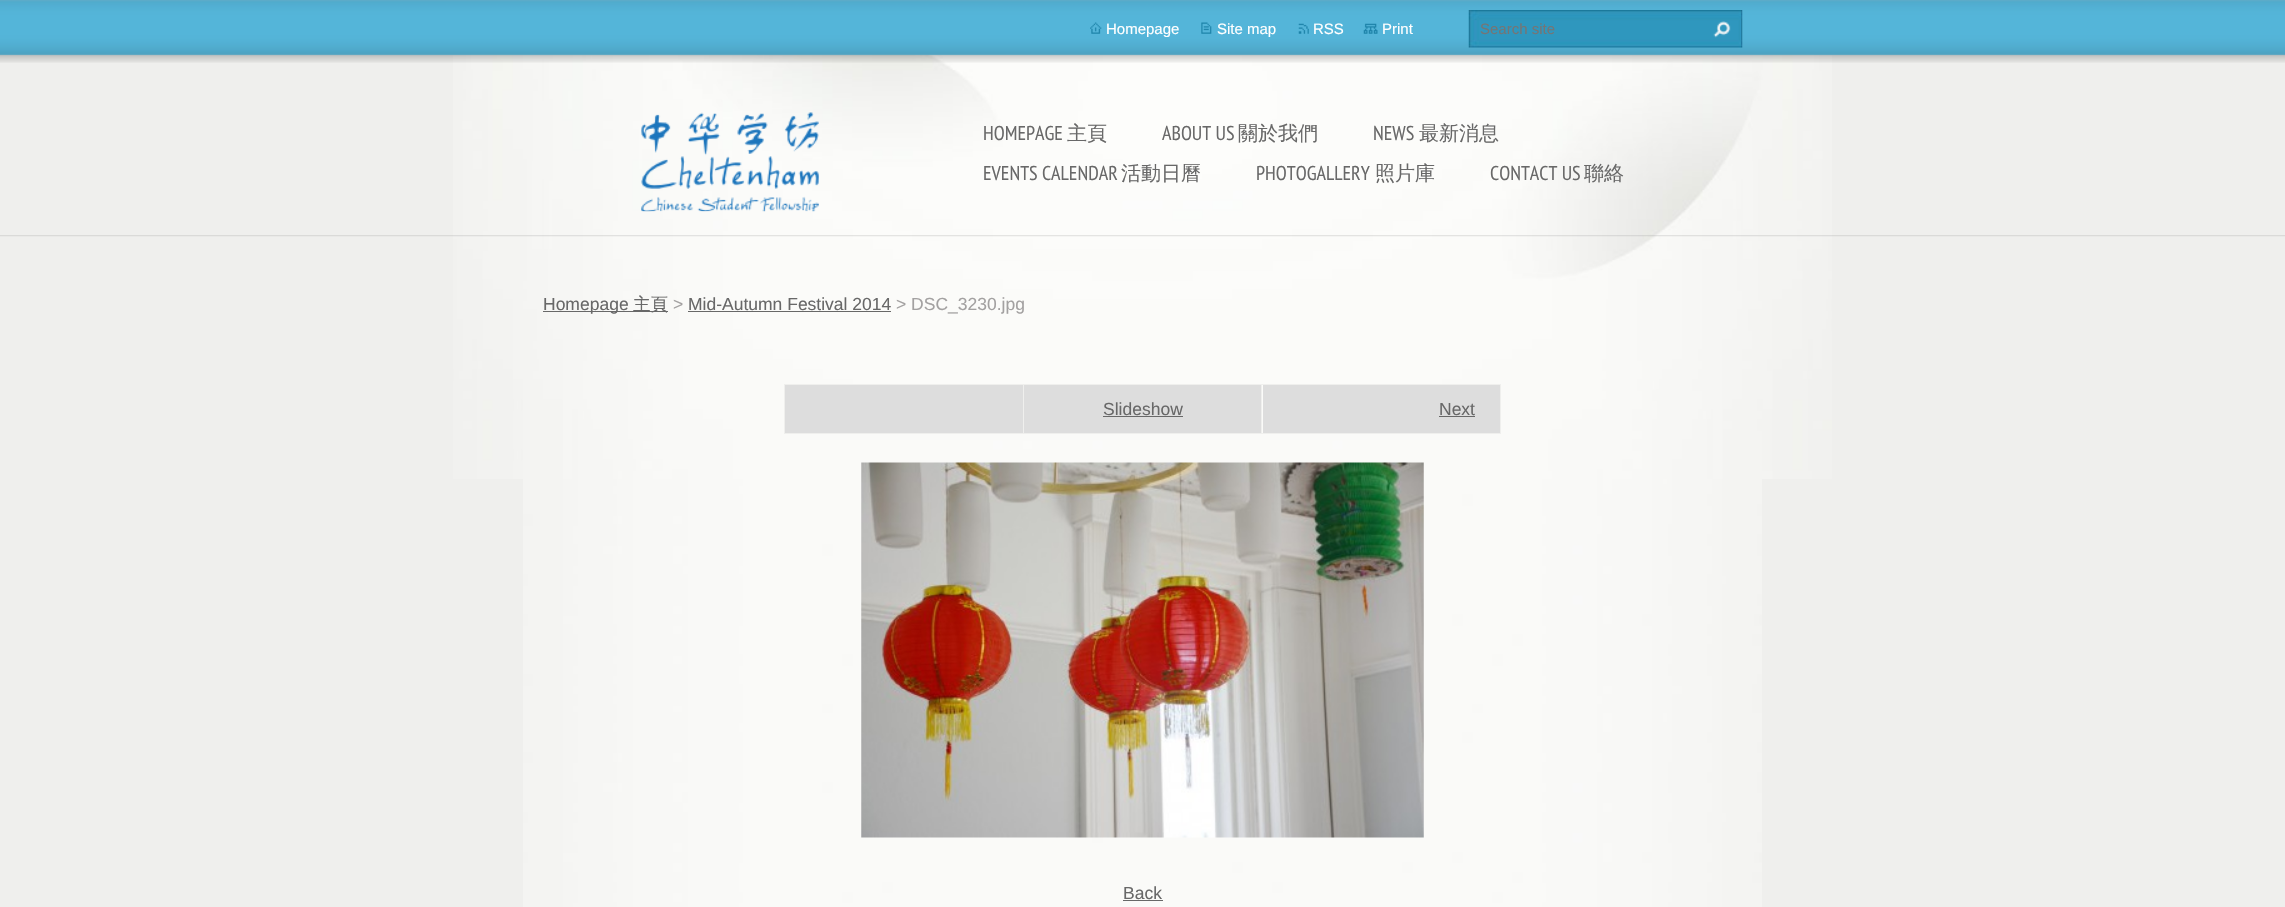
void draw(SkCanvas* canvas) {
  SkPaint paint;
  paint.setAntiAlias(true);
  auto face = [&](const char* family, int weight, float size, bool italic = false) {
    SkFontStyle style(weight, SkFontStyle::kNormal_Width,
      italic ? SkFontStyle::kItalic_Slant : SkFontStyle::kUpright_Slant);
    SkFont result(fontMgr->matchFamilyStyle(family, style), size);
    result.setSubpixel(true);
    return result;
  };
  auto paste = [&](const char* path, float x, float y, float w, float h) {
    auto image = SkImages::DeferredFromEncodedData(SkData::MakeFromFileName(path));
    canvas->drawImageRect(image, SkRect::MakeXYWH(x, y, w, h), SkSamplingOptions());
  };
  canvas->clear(0xffefefed);
  paste("img/1.png", 523, 479, 1239, 428);
  paste("img/2.png", 453, 54, 1379, 425);
  paste("img/3.png", 0, 235, 2285, 2);
  paste("img/4.png", 0, 0, 2285, 63);
  paste("img/5.png", 1090, 22, 12, 12);
  paste("img/6.png", 1201, 22, 11, 12);
  paste("img/7.png", 1298, 23, 11, 11);
  paste("img/8.png", 1363, 23, 15, 11);
  paste("img/9.png", 1468, 10, 275, 38);
  paste("img/10.png", 1713, 21, 18, 17);
  paste("img/11.png", 641, 112, 178, 100);
  {
    const struct { float x, y, w, h; SkColor color; } items[] = {
      {543, 311, 125, 1, 0xff686868},
      {688, 311, 203, 1, 0xff686868},
      {784, 384, 717, 1, 0xffefefed},
      {784, 384, 1, 50, 0xffefefed},
      {785, 385, 238, 48, 0xffdddddd},
      {1500, 384, 1, 50, 0xffefefed},
      {1261, 433, 240, 1, 0xffefefed},
      {1261, 384, 1, 50, 0xffefefed},
      {1023, 433, 240, 1, 0xffefefed},
      {1023, 384, 1, 50, 0xffefefed},
      {784, 433, 240, 1, 0xffefefed},
      {1024, 385, 237, 48, 0xffdddddd},
      {1103, 416, 80, 1, 0xff686868},
      {1263, 385, 237, 48, 0xffdddddd},
      {1439, 416, 36, 1, 0xff686868},
    };
    for (auto [x, y, w, h, color] : items) {
      paint.setColor(color);
      canvas->drawRect(SkRect::MakeXYWH(x, y, w, h), paint);
    }
  }
  paste("img/12.png", 861, 462, 563, 376);
  canvas->drawRect(SkRect::MakeXYWH(1123, 900, 40, 1), paint);
  auto f0 = face("Liberation Sans", 400, 15);
  paint.setColor(0xffffffff);
  {
    const struct { const char* s; float x, y; } items[] = {
      {"Homepage", 1106, 34},
      {"Site map", 1217, 34},
      {"RSS", 1313, 34},
      {"Print", 1382, 34},
    };
    for (auto [s, x, y] : items) {
      canvas->drawString(s, x, y, f0, paint);
    }
  }
  paint.setColor(0xff757575);
  canvas->drawString("Search site", 1480, 34, f0, paint);
  auto f1 = face("PT Sans Narrow", 400, 20);
  paint.setColor(0xff686868);
  canvas->drawString("HOMEPAGE", 983, 140, f1, paint);
  auto f2 = face("WenQuanYi Zen Hei", 500, 20);
  canvas->drawString("主頁", 1067, 140, f2, paint);
  canvas->drawString("ABOUT US", 1162, 140, f1, paint);
  canvas->drawString("關於我們", 1238, 140, f2, paint);
  canvas->drawString("NEWS", 1373, 140, f1, paint);
  canvas->drawString("最新消息", 1419, 140, f2, paint);
  canvas->drawString("EVENTS CALENDAR", 983, 180, f1, paint);
  canvas->drawString("活動日曆", 1121, 180, f2, paint);
  canvas->drawString("PHOTOGALLERY", 1256, 180, f1, paint);
  canvas->drawString("照片庫", 1375, 180, f2, paint);
  canvas->drawString("CONTACT US", 1490, 180, f1, paint);
  canvas->drawString("聯絡", 1584, 180, f2, paint);
  auto f3 = face("Liberation Sans", 400, 17.5f);
  canvas->drawString("Homepage", 543, 310, f3, paint);
  auto f4 = face("WenQuanYi Zen Hei", 500, 17.5f);
  canvas->drawString("主頁", 633, 310, f4, paint);
  paint.setColor(0xffa3a1a1);
  canvas->drawString(">", 673, 310, f3, paint);
  paint.setColor(0xff686868);
  canvas->drawString("Mid-Autumn Festival 2014", 688, 310, f3, paint);
  paint.setColor(0xffa3a1a1);
  canvas->drawString("> DSC_3230.jpg", 896, 310, f3, paint);
  paint.setColor(0xff686868);
  {
    const struct { const char* s; float x, y; } items[] = {
      {"Slideshow", 1103, 415},
      {"Next", 1439, 415},
      {"Back", 1123, 899},
    };
    for (auto [s, x, y] : items) {
      canvas->drawString(s, x, y, f3, paint);
    }
  }
}
